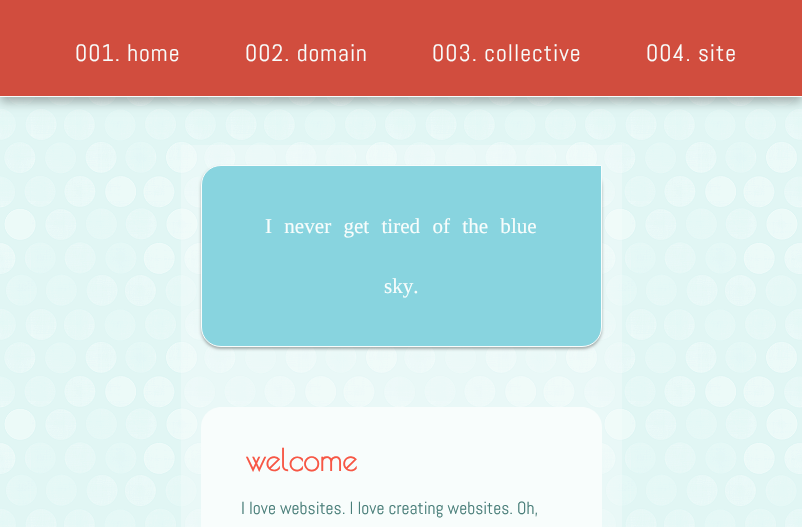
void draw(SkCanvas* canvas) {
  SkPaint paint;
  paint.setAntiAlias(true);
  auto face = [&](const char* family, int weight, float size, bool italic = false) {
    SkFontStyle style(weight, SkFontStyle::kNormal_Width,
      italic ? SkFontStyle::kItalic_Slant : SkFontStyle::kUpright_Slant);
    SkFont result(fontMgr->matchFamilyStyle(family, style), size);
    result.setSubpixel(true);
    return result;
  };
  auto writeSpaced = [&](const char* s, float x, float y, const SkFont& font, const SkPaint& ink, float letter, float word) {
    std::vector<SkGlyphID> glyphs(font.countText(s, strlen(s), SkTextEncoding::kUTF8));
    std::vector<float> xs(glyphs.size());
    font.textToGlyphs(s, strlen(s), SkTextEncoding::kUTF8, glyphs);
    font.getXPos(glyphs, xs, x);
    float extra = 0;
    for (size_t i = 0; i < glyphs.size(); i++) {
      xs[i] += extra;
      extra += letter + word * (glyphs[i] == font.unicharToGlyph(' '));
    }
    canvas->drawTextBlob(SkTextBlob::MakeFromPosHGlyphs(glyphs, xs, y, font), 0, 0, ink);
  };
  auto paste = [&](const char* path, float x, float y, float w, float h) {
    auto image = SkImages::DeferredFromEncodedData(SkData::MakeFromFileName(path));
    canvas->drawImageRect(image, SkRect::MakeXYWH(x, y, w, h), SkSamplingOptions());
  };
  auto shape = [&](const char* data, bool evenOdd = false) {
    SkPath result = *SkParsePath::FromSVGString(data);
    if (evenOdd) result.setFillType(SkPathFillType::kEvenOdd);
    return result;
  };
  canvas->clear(0xffffffff);
  paste("img/1.png", 0, 97, 802, 430);
  paint.setColor(0x4d000000);
  paint.setMaskFilter(SkMaskFilter::MakeBlur(kNormal_SkBlurStyle, 5));
  canvas->drawRect(SkRect::MakeXYWH(0, 5, 802, 97), paint);
  paint.setMaskFilter(nullptr);
  {
    const struct { float x, y, w, h; SkColor color; } items[] = {
      {0, 0, 802, 96, 0xffd14d3e},
      {0, 96, 802, 1, 0xfff8fdfc},
      {181, 145, 441, 382, 0x5cf8fdfc},
    };
    for (auto [x, y, w, h, color] : items) {
      paint.setColor(color);
      canvas->drawRect(SkRect::MakeXYWH(x, y, w, h), paint);
    }
  }
  paint.setColor(0x4d000000);
  paint.setMaskFilter(SkMaskFilter::MakeBlur(kNormal_SkBlurStyle, 1.5f));
  canvas->drawRoundRect(SkRect::MakeXYWH(201, 167, 401, 182), 20, 20, paint);
  paint.setMaskFilter(nullptr);
  paint.setColor(0xff88d4df);
  canvas->drawPath(shape("M221 165.5H601.5V327C601.5 338 593 346.5 582 346.5H221C210 346.5 201.5 338 201.5 327V185C201.5 174 210 165.5 221 165.5Z"), paint);
  paint.setStroke(true);
  paint.setStrokeWidth(1);
  paint.setColor(0xfff8fdfc);
  canvas->drawPath(shape("M221 165.5H601.5V327C601.5 338 593 346.5 582 346.5H221C210 346.5 201.5 338 201.5 327V185C201.5 174 210 165.5 221 165.5Z"), paint);
  paint.setStroke(false);
  canvas->drawPath(shape("M221 407H582C593 407 602 416 602 427V527C602 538 593 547 582 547H201V427C201 416 210 407 221 407Z"), paint);
  auto f0 = face("Abel", 400, 23.75f);
  {
    const struct { const char* s; float x, y; } items[] = {
      {"001. home", 75, 61},
      {"002. domain", 245, 61},
      {"003. collective", 432, 61},
      {"004. site", 646, 61},
    };
    for (auto [s, x, y] : items) {
      writeSpaced(s, x, y, f0, paint, 1, 0);
    }
  }
  auto f1 = face("Liberation Serif", 400, 21.1f);
  writeSpaced("I never get tired of the blue", 265, 233, f1, paint, 0, 7);
  canvas->drawString("sky.", 384, 293, f1, paint);
  auto f2 = face("Poiret One", 700, 30);
  paint.setColor(0xfff75745);
  canvas->drawString("welcome", 246, 471, f2, paint);
  auto f3 = face("Abel", 400, 17.6f);
  paint.setColor(0xff497e79);
  canvas->drawString("I love websites. I love creating websites. Oh,", 241, 514, f3, paint);
}
